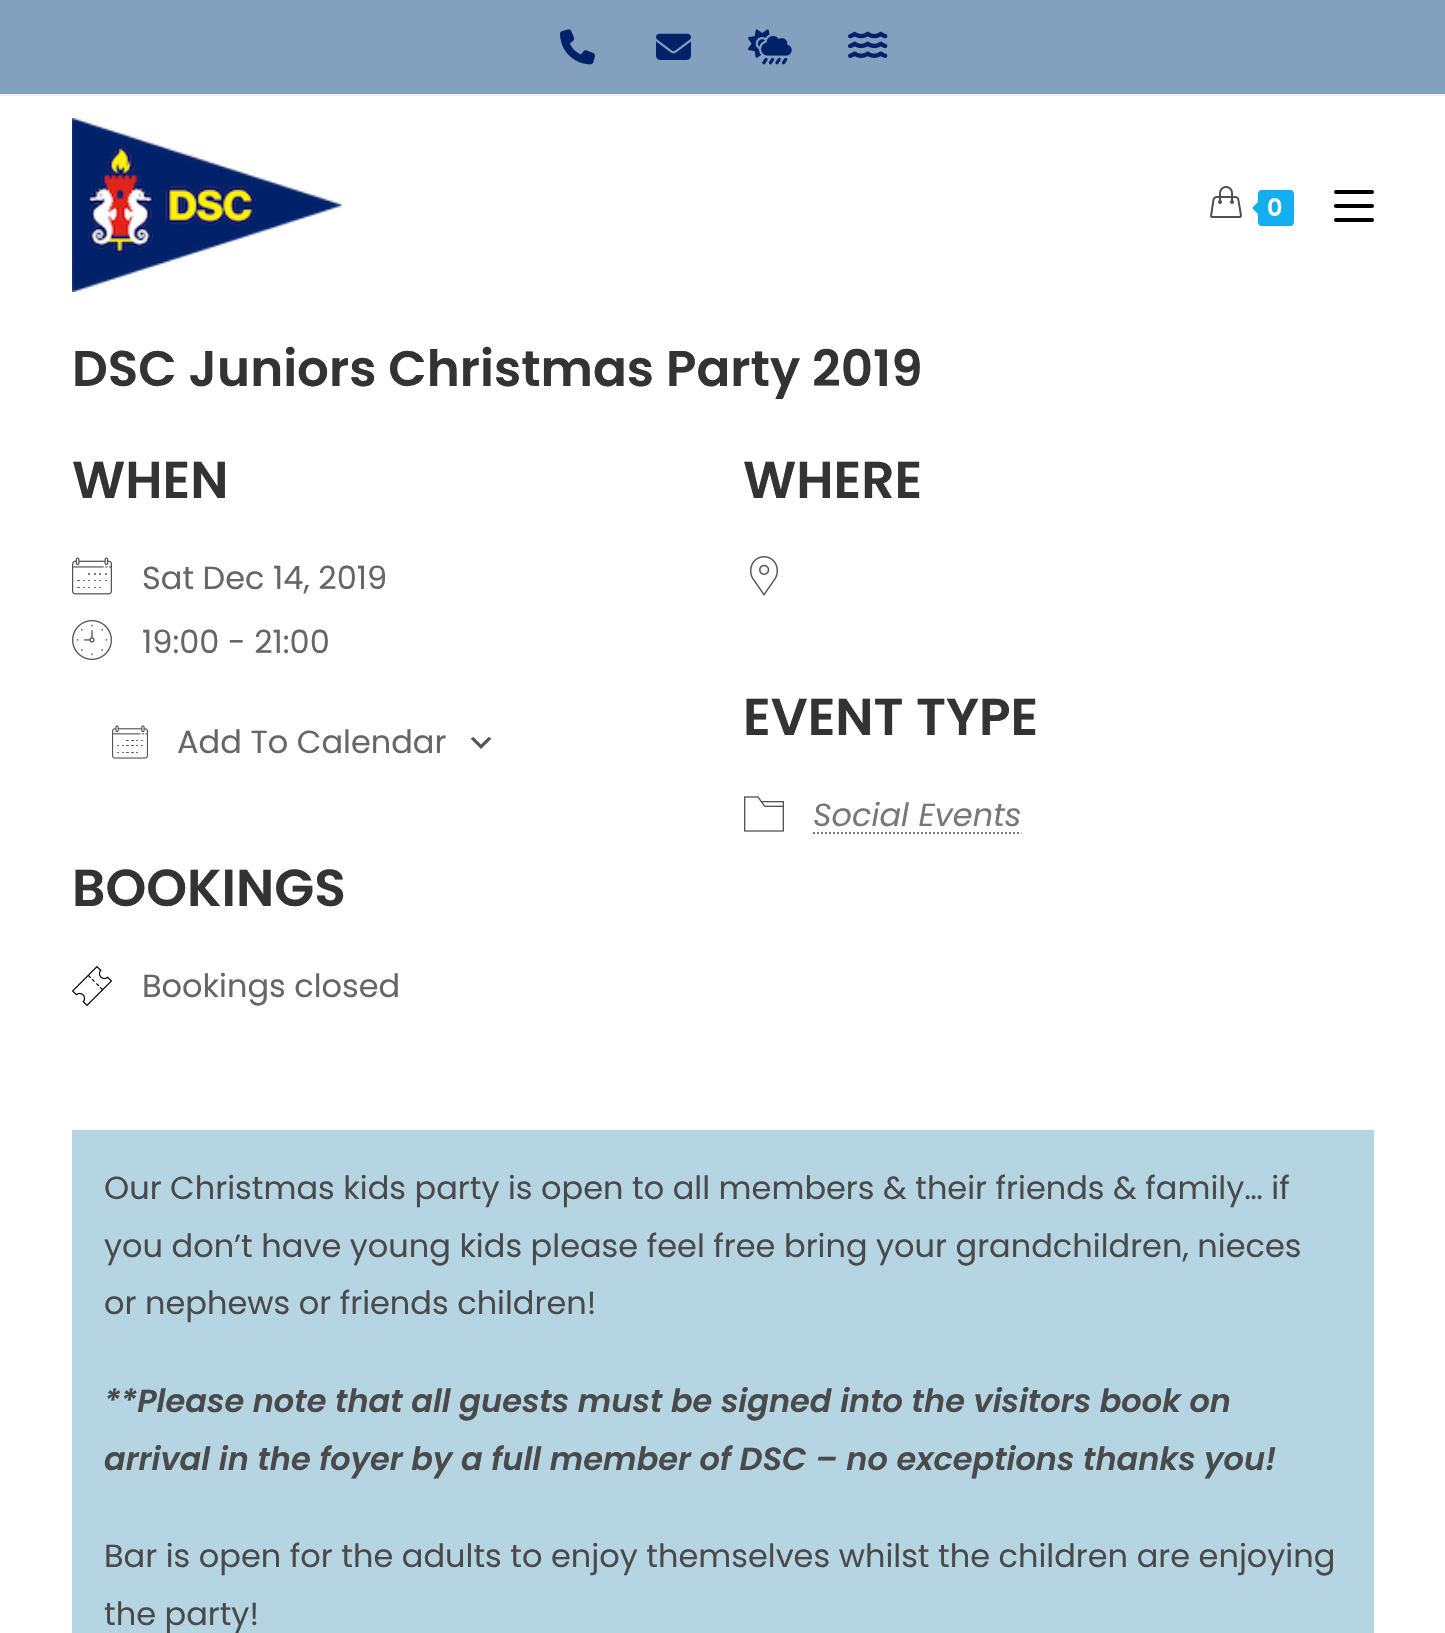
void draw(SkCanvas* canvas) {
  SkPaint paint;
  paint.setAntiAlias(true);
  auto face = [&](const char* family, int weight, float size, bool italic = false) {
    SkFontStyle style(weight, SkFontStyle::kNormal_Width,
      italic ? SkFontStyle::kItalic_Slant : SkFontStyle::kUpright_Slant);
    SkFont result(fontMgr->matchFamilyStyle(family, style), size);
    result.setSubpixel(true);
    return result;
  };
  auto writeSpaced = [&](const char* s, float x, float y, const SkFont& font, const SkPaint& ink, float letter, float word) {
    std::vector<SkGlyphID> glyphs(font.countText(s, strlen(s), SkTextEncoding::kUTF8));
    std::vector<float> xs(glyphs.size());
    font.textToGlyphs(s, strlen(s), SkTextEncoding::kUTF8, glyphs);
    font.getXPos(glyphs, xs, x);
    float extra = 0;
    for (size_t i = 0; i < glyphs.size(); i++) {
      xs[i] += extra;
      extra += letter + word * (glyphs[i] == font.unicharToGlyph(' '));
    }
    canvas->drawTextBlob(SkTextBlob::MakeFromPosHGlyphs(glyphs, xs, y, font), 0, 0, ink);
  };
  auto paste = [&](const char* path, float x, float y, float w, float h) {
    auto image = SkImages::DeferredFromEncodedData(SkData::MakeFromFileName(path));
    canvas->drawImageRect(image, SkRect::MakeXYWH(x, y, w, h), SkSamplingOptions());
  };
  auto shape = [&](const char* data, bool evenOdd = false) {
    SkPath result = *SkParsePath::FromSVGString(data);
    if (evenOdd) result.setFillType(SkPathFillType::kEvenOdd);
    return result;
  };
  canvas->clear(0xffffffff);
  paint.setColor(0xff83a1bf);
  canvas->drawRect(SkRect::MakeXYWH(0, 0, 1445, 94), paint);
  paint.setColor(0xfff1f1f1);
  canvas->drawRect(SkRect::MakeXYWH(0, 94, 1445, 2), paint);
  paste("img/1.png", 560, 29, 35, 36);
  paste("img/2.png", 656, 33, 35, 27);
  paste("img/3.png", 748, 29, 44, 36);
  paste("img/4.png", 848, 31, 40, 27);
  paste("img/5.png", 72, 118, 270, 174);
  paste("img/6.png", 1210, 186, 32, 32);
  paint.setColor(0xff13aff0);
  canvas->drawRoundRect(SkRect::MakeXYWH(1258, 190, 36, 36), 4, 4, paint);
  canvas->drawPath(shape("M1262 198V218L1252 208Z"), paint);
  paint.setColor(0xff000000);
  canvas->drawRoundRect(SkRect::MakeXYWH(1334, 190, 40, 4), 2, 2, paint);
  canvas->drawRoundRect(SkRect::MakeXYWH(1334, 204, 40, 4), 2, 2, paint);
  canvas->drawRoundRect(SkRect::MakeXYWH(1334, 218, 40, 4), 2, 2, paint);
  paste("img/7.png", 72, 557, 40, 38);
  paste("img/8.png", 72, 620, 40, 40);
  paint.setColor(0xff555555);
  canvas->drawPath(shape("M473.5 737L481 744.5L488.5 737L491.5 738.5L481 749L470.5 738.5Z"), paint);
  paste("img/9.png", 112, 725, 36, 34);
  paste("img/10.png", 72, 966, 40, 40);
  paste("img/11.png", 750, 556, 28, 40);
  paste("img/12.png", 744, 796, 40, 36);
  paint.setStroke(true);
  paint.setStrokeWidth(2);
  paint.setColor(0xff787878);
  paint.setPathEffect(SkDashPathEffect::Make({{2, 2}}, 0));
  canvas->drawPath(shape("M813 833H1021.5"), paint);
  paint.setPathEffect(nullptr);
  paint.setStroke(false);
  paint.setColor(0xffb6d5e3);
  canvas->drawRect(SkRect::MakeXYWH(72, 1130, 1302, 503), paint);
  auto f0 = face("Poppins", 600, 24);
  paint.setColor(0xffffffff);
  writeSpaced("0", 1267, 216, f0, paint, 1, 0);
  auto f1 = face("Poppins", 600, 50);
  paint.setColor(0xff333333);
  canvas->drawString("DSC Juniors Christmas Party 2019", 72, 386, f1, paint);
  auto f2 = face("Poppins", 600, 52);
  canvas->drawString("WHEN", 72, 498, f2, paint);
  auto f3 = face("Poppins", 400, 32);
  paint.setColor(0xff666666);
  {
    const struct { const char* s; float x, y; } items[] = {
      {"Sat Dec 14, 2019", 142, 589},
      {"19:00 - 21:00", 142, 653},
      {"Add To Calendar", 177, 753},
    };
    for (auto [s, x, y] : items) {
      canvas->drawString(s, x, y, f3, paint);
    }
  }
  paint.setColor(0xff333333);
  canvas->drawString("BOOKINGS", 72, 906, f2, paint);
  paint.setColor(0xff666666);
  canvas->drawString("Bookings closed", 142, 997, f3, paint);
  paint.setColor(0xff333333);
  canvas->drawString("WHERE", 743, 498, f2, paint);
  canvas->drawString("EVENT TYPE", 743, 735, f2, paint);
  auto f4 = face("Poppins", 400, 32, true);
  paint.setColor(0xff787878);
  canvas->drawString("Social Events", 813, 826, f4, paint);
  paint.setColor(0xff4a4a4a);
  {
    const struct { const char* s; float x, y; } items[] = {
      {"Our Christmas kids party is open to all members & their friends & family… if", 104, 1199},
      {"you don’t have young kids please feel free bring your grandchildren, nieces", 104, 1257},
      {"or nephews or friends children!", 104, 1314},
    };
    for (auto [s, x, y] : items) {
      canvas->drawString(s, x, y, f3, paint);
    }
  }
  auto f5 = face("Poppins", 600, 32, true);
  canvas->drawString("**Please note that all guests must be signed into the visitors book on", 104, 1412, f5, paint);
  canvas->drawString("arrival in the foyer by a full member of DSC – no exceptions thanks you!", 104, 1470, f5, paint);
  canvas->drawString("Bar is open for the adults to enjoy themselves whilst the children are enjoying", 104, 1567, f3, paint);
  canvas->drawString("the party!", 104, 1625, f3, paint);
}
